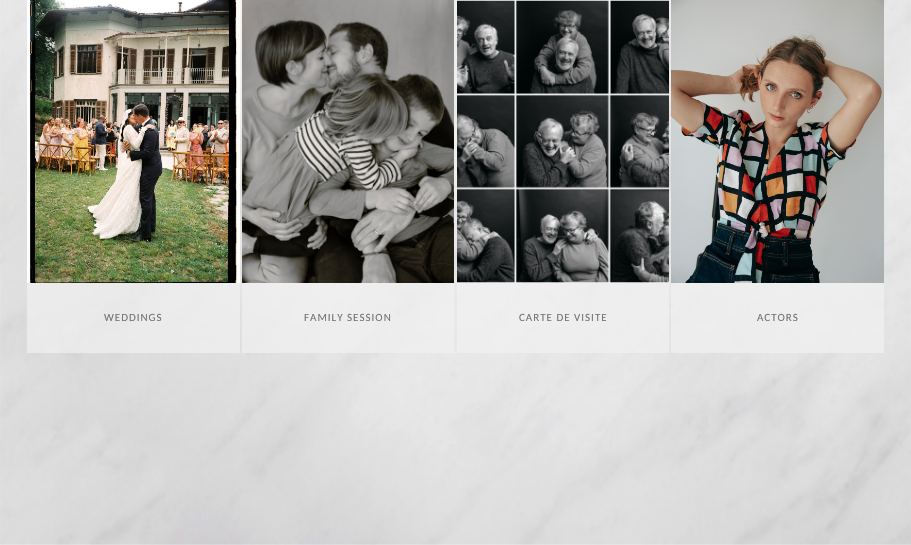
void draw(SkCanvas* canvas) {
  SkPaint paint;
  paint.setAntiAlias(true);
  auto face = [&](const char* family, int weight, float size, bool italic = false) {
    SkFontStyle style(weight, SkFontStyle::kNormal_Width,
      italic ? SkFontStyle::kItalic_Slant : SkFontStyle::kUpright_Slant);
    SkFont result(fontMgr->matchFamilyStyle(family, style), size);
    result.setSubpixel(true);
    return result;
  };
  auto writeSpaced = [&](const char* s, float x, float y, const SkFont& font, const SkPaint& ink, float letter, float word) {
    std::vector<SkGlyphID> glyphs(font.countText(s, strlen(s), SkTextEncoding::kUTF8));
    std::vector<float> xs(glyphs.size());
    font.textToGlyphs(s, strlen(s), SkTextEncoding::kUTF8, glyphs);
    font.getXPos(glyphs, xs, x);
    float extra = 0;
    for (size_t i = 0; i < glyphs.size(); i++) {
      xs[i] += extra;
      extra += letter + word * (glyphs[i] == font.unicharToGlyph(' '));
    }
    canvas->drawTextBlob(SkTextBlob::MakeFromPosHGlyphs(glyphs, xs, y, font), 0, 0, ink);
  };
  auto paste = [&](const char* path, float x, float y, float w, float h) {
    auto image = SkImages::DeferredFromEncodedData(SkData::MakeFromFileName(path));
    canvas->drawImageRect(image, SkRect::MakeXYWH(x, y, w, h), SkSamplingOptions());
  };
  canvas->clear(0xffffffff);
  paste("img/1.png", 0, 0, 911, 545);
  paste("img/2.png", 27, 0, 213, 283);
  paint.setColor(0xb3f1f1f1);
  canvas->drawRect(SkRect::MakeXYWH(27, 283, 213, 70), paint);
  paste("img/3.png", 242, 0, 212, 283);
  canvas->drawRect(SkRect::MakeXYWH(242, 283, 212, 70), paint);
  paste("img/4.png", 457, 0, 212, 283);
  canvas->drawRect(SkRect::MakeXYWH(457, 283, 212, 70), paint);
  paste("img/5.png", 671, 0, 213, 283);
  canvas->drawRect(SkRect::MakeXYWH(671, 283, 213, 70), paint);
  auto f0 = face("Carlito", 400, 11);
  paint.setColor(0xff737373);
  {
    const struct { const char* s; float x, y; } items[] = {
      {"WEDDINGS", 104, 321},
      {"FAMILY SESSION", 304, 321},
      {"CARTE DE VISITE", 519, 321},
      {"ACTORS", 757, 321},
    };
    for (auto [s, x, y] : items) {
      writeSpaced(s, x, y, f0, paint, 1, 0);
    }
  }
}
